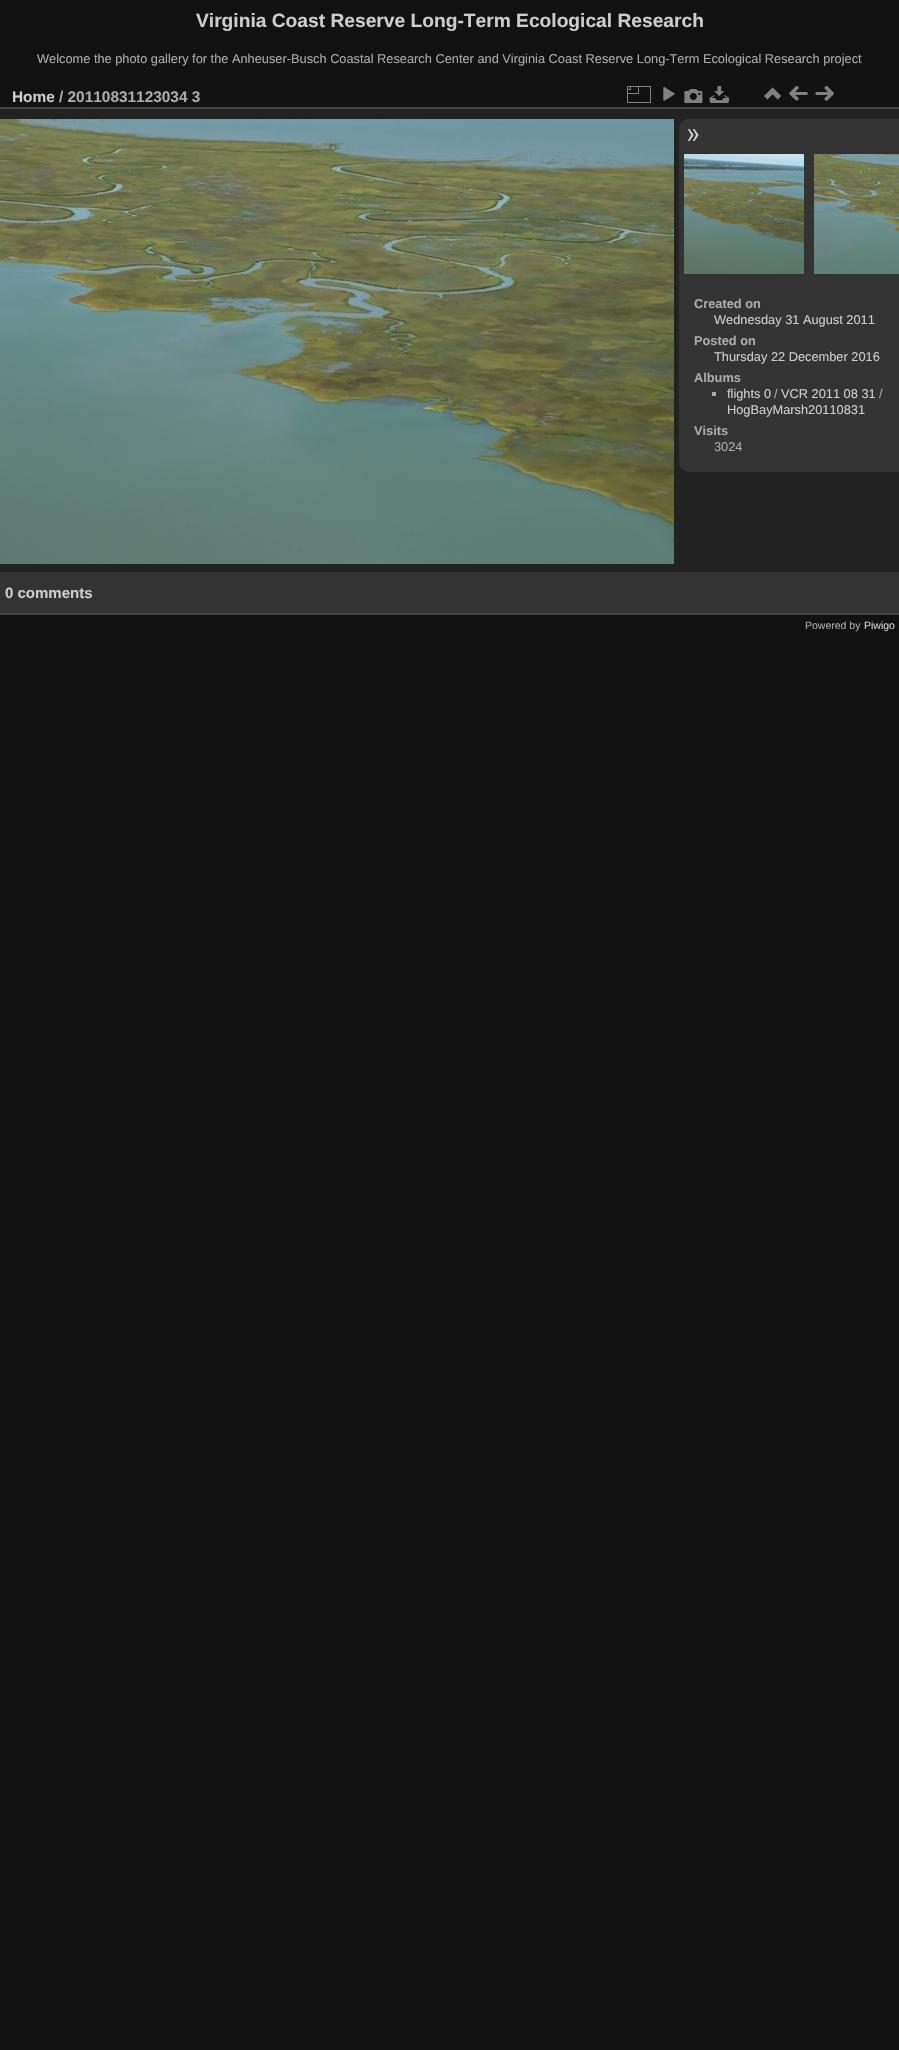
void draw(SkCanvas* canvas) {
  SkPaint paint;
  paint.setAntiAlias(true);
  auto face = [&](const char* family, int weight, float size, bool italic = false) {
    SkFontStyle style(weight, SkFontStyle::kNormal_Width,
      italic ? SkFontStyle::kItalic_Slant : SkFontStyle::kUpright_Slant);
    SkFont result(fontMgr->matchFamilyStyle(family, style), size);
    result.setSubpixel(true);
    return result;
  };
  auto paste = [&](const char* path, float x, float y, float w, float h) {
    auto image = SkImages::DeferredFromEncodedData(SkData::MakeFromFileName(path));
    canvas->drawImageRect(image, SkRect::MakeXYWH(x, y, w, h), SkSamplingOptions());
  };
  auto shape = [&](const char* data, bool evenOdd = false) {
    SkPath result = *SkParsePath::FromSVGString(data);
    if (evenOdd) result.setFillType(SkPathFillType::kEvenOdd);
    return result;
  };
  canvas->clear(0xff111111);
  {
    const struct { float x, y, w, h; SkColor color; } items[] = {
      {0, 109, 899, 463, 0xff222222},
      {0, 613, 899, 2, 0xff444444},
      {0, 107, 899, 2, 0xff444444},
    };
    for (auto [x, y, w, h, color] : items) {
      paint.setColor(color);
      canvas->drawRect(SkRect::MakeXYWH(x, y, w, h), paint);
    }
  }
  paste("img/1.png", 627, 86, 24, 17);
  paste("img/2.png", 663, 87, 12, 14);
  paste("img/3.png", 684, 89, 19, 14);
  paste("img/4.png", 709, 86, 21, 17);
  paste("img/5.png", 764, 87, 17, 13);
  paste("img/6.png", 789, 86, 19, 15);
  paste("img/7.png", 815, 86, 19, 15);
  paste("img/8.png", 0, 119, 674, 445);
  paint.setColor(0xff333333);
  canvas->drawPath(shape("M689 119H899V472H689C683.5 472 679 467.5 679 462V129C679 123.5 683.5 119 689 119Z"), paint);
  paste("img/9.png", 687, 129, 12, 12);
  paste("img/10.png", 684, 154, 120, 120);
  paste("img/11.png", 814, 154, 85, 120);
  paint.setColor(0xffaaaaaa);
  canvas->drawRect(SkRect::MakeXYWH(712, 392, 4, 4), paint);
  paint.setColor(0xff333333);
  canvas->drawRect(SkRect::MakeXYWH(0, 572, 899, 41), paint);
  auto f0 = face("Liberation Sans", 700, 19.2f);
  paint.setColor(0xffcccccc);
  canvas->drawString("Virginia Coast Reserve Long-Term Ecological Research", 196, 27, f0, paint);
  auto f1 = face("Liberation Sans", 400, 12.8f);
  paint.setColor(0xffaaaaaa);
  canvas->drawString("Welcome the photo gallery for the Anheuser-Busch Coastal Research Center and Virginia Coast Reserve Long-Term Ecological Research project", 37, 63, f1, paint);
  auto f2 = face("Liberation Sans", 700, 15.4f);
  paint.setColor(0xffcccccc);
  canvas->drawString("Home", 12, 102, f2, paint);
  paint.setColor(0xffaaaaaa);
  canvas->drawString("/ 20110831123034 3", 59, 102, f2, paint);
  auto f3 = face("Liberation Sans", 700, 12.8f);
  canvas->drawString("Created on", 694, 308, f3, paint);
  paint.setColor(0xffcccccc);
  canvas->drawString("Wednesday 31 August 2011", 714, 324, f1, paint);
  paint.setColor(0xffaaaaaa);
  canvas->drawString("Posted on", 694, 345, f3, paint);
  paint.setColor(0xffcccccc);
  canvas->drawString("Thursday 22 December 2016", 714, 361, f1, paint);
  paint.setColor(0xffaaaaaa);
  canvas->drawString("Albums", 694, 382, f3, paint);
  paint.setColor(0xffcccccc);
  canvas->drawString("flights 0", 727, 398, f1, paint);
  paint.setColor(0xffaaaaaa);
  canvas->drawString("/", 774, 398, f1, paint);
  paint.setColor(0xffcccccc);
  canvas->drawString("VCR 2011 08 31", 781, 398, f1, paint);
  paint.setColor(0xffaaaaaa);
  canvas->drawString("/", 879, 398, f1, paint);
  paint.setColor(0xffcccccc);
  canvas->drawString("HogBayMarsh20110831", 727, 414, f1, paint);
  paint.setColor(0xffaaaaaa);
  canvas->drawString("Visits", 694, 435, f3, paint);
  canvas->drawString("3024", 714, 451, f1, paint);
  auto f4 = face("Liberation Sans", 700, 15);
  paint.setColor(0xffcccccc);
  canvas->drawString("0 comments", 5, 598, f4, paint);
  auto f5 = face("Liberation Sans", 400, 10.5f);
  paint.setColor(0xffaaaaaa);
  canvas->drawString("Powered by", 805, 629, f5, paint);
  paint.setColor(0xffcccccc);
  canvas->drawString("Piwigo", 864, 629, f5, paint);
}
